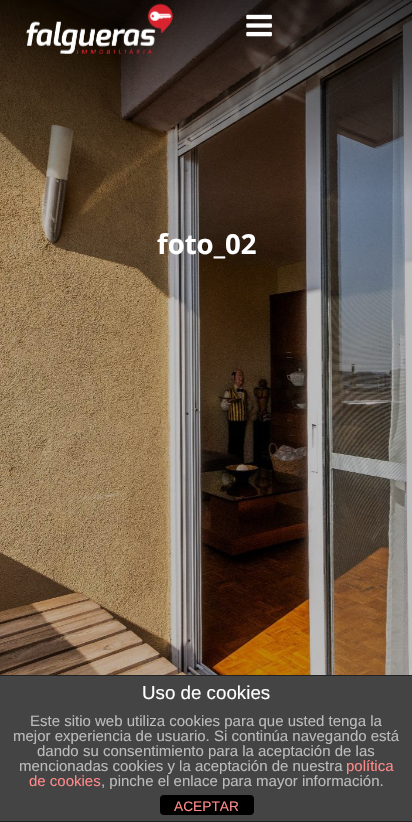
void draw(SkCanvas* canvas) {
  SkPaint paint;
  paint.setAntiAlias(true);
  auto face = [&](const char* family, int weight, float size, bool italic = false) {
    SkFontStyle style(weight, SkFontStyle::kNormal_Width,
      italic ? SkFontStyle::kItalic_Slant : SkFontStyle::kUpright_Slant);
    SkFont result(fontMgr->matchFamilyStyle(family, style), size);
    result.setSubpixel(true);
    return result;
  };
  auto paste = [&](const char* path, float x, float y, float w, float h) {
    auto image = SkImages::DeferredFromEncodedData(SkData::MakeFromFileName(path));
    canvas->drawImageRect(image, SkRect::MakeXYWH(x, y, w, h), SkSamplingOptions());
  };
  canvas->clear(0xffffffff);
  paste("img/3.png", 0, 0, 412, 675);
  paste("img/1.png", 26, 3, 147, 51);
  paste("img/2.png", 246, 14, 26, 23);
  {
    const struct { float x, y, w, h; SkColor color; } items[] = {
      {0, 676, 412, 145, 0xff444444},
      {0, 675, 412, 1, 0xff222222},
      {0, 821, 412, 1, 0xff222222},
    };
    for (auto [x, y, w, h, color] : items) {
      paint.setColor(color);
      canvas->drawRect(SkRect::MakeXYWH(x, y, w, h), paint);
    }
  }
  paint.setColor(0xff000000);
  canvas->drawRoundRect(SkRect::MakeXYWH(160, 795, 94, 20), 4, 4, paint);
  auto f0 = face("Open Sans", 700, 27.5f);
  paint.setColor(0xffffffff);
  canvas->drawString("foto_02", 157, 254, f0, paint);
  auto f1 = face("Liberation Sans", 400, 18.75f);
  canvas->drawString("Uso de cookies", 142, 699, f1, paint);
  auto f2 = face("Liberation Sans", 400, 15);
  paint.setColor(0xffbbbbbb);
  {
    const struct { const char* s; float x, y; } items[] = {
      {"Este sitio web utiliza cookies para que usted tenga la", 30, 726},
      {"mejor experiencia de usuario. Si continúa navegando está", 13, 741},
      {"dando su consentimiento para la aceptación de las", 37, 756},
      {"mencionadas cookies y la aceptación de nuestra", 19, 771},
    };
    for (auto [s, x, y] : items) {
      canvas->drawString(s, x, y, f2, paint);
    }
  }
  paint.setColor(0xffff8888);
  canvas->drawString("política", 346, 771, f2, paint);
  canvas->drawString("de cookies", 29, 786, f2, paint);
  paint.setColor(0xffbbbbbb);
  canvas->drawString(", pinche el enlace para mayor información.", 101, 786, f2, paint);
  auto f3 = face("Liberation Sans", 400, 13.75f);
  paint.setColor(0xffff8888);
  canvas->drawString("ACEPTAR", 174, 811, f3, paint);
}
